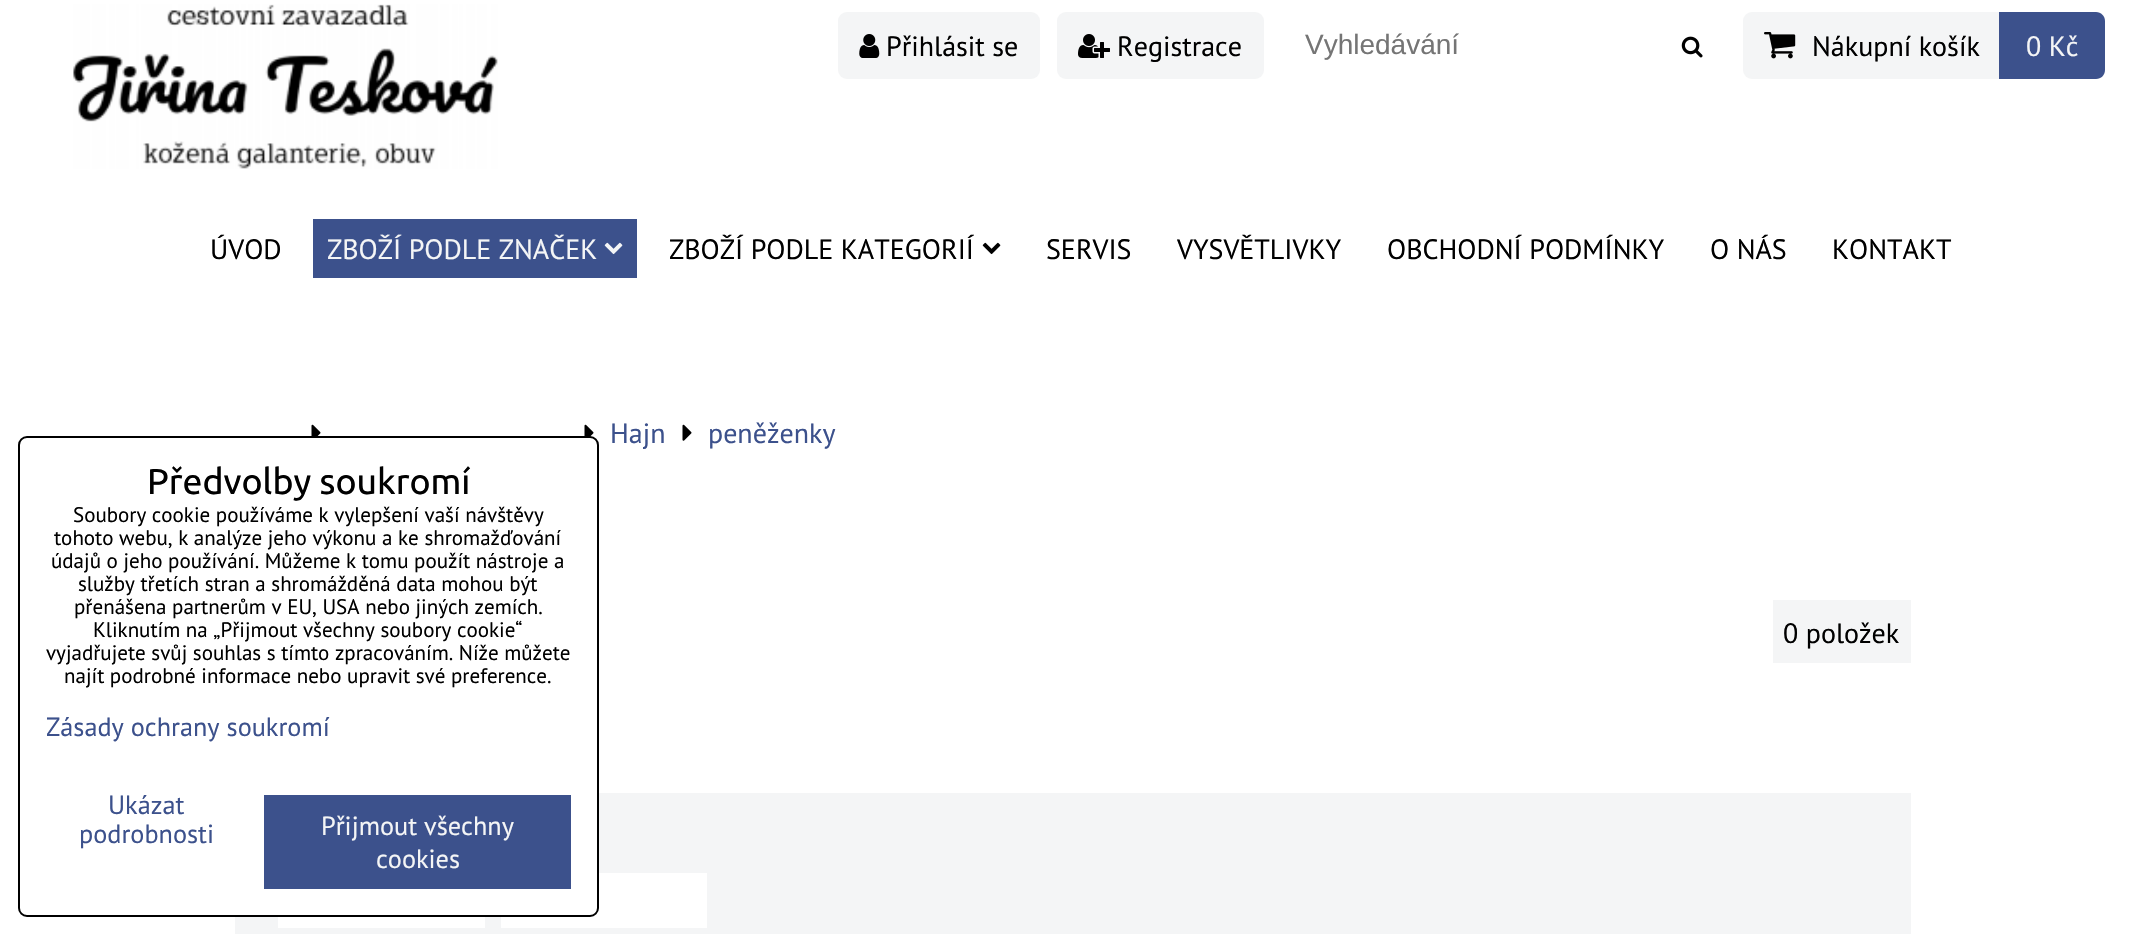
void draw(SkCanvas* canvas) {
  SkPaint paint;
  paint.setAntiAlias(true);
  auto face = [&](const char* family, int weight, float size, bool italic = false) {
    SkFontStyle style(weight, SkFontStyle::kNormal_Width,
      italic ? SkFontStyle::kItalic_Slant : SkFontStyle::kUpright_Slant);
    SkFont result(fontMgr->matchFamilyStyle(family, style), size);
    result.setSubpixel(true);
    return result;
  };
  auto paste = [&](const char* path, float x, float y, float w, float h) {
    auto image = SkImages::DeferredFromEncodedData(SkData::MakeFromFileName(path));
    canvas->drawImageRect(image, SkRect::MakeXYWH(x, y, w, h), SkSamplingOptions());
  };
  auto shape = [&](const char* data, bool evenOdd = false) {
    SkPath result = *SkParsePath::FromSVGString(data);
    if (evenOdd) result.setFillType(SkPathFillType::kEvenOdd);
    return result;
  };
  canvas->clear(0xffffffff);
  paste("img/1.png", 73, 4, 425, 165);
  paint.setColor(0xfff4f5f6);
  canvas->drawRoundRect(SkRect::MakeXYWH(838, 12, 202, 67), 9, 9, paint);
  paste("img/2.png", 859, 34, 21, 24);
  canvas->drawRoundRect(SkRect::MakeXYWH(1057, 12, 207, 67), 9, 9, paint);
  paste("img/3.png", 1078, 34, 32, 24);
  paste("img/4.png", 1681, 36, 22, 22);
  canvas->drawRoundRect(SkRect::MakeXYWH(1743, 12, 362, 67), 9, 9, paint);
  paste("img/5.png", 1764, 32, 32, 27);
  paint.setColor(0xff3c518c);
  canvas->drawPath(shape("M1999 12H2096C2101 12 2105 16 2105 21V70C2105 75 2101 79 2096 79H1999Z"), paint);
  canvas->drawRect(SkRect::MakeXYWH(313, 219, 324, 59), paint);
  paste("img/6.png", 604, 242, 19, 13);
  paste("img/7.png", 982, 242, 19, 13);
  paste("img/8.png", 311, 424, 10, 12);
  paste("img/9.png", 584, 424, 10, 13);
  paste("img/10.png", 682, 424, 10, 17);
  {
    const struct { float x, y, w, h; SkColor color; } items[] = {
      {1773, 600, 138, 63, 0xfff4f5f6},
      {235, 793, 1676, 141, 0xfff4f5f6},
      {278, 917, 207, 11, 0xffffffff},
      {501, 873, 206, 55, 0xffffffff},
    };
    for (auto [x, y, w, h, color] : items) {
      paint.setColor(color);
      canvas->drawRect(SkRect::MakeXYWH(x, y, w, h), paint);
    }
  }
  canvas->drawRoundRect(SkRect::MakeXYWH(19, 437, 579, 479), 8, 8, paint);
  paint.setStroke(true);
  paint.setStrokeWidth(2);
  paint.setColor(0xff000000);
  canvas->drawRoundRect(SkRect::MakeXYWH(19, 437, 579, 479), 8, 8, paint);
  paint.setStroke(false);
  paint.setColor(0xff3c518c);
  canvas->drawRect(SkRect::MakeXYWH(264, 795, 307, 94), paint);
  auto f0 = face("PT Sans", 400, 28);
  paint.setColor(0xff000000);
  canvas->drawString("Přihlásit se", 886, 56, f0, paint);
  canvas->drawString("Registrace", 1117, 56, f0, paint);
  auto f1 = face("Liberation Sans", 400, 28);
  paint.setColor(0xff757575);
  canvas->drawString("Vyhledávání", 1305, 54, f1, paint);
  paint.setColor(0xff000000);
  canvas->drawString("Nákupní košík", 1812, 56, f0, paint);
  paint.setColor(0xfff4f5f6);
  canvas->drawString("0 Kč", 2026, 56, f0, paint);
  paint.setColor(0xff000000);
  canvas->drawString("ÚVOD", 210, 259, f0, paint);
  paint.setColor(0xfff4f5f6);
  canvas->drawString("ZBOŽÍ PODLE ZNAČEK", 327, 259, f0, paint);
  paint.setColor(0xff000000);
  {
    const struct { const char* s; float x, y; } items[] = {
      {"ZBOŽÍ PODLE KATEGORIÍ", 669, 259},
      {"SERVIS", 1046, 259},
      {"VYSVĚTLIVKY", 1177, 259},
      {"OBCHODNÍ PODMÍNKY", 1387, 259},
      {"O NÁS", 1710, 259},
      {"KONTAKT", 1832, 259},
    };
    for (auto [s, x, y] : items) {
      canvas->drawString(s, x, y, f0, paint);
    }
  }
  paint.setColor(0xff3c518c);
  canvas->drawString("Hajn", 610, 443, f0, paint);
  canvas->drawString("peněženky", 708, 443, f0, paint);
  paint.setColor(0xff000000);
  canvas->drawString("0 položek", 1783, 643, f0, paint);
  auto f2 = face("Ubuntu", 400, 35.75f);
  canvas->drawString("Předvolby soukromí", 147, 494, f2, paint);
  auto f3 = face("PT Sans", 400, 21);
  {
    const struct { const char* s; float x, y; } items[] = {
      {"Soubory cookie používáme k vylepšení vaší návštěvy", 73, 522},
      {"tohoto webu, k analýze jeho výkonu a ke shromažďování", 54, 545},
      {"údajů o jeho používání. Můžeme k tomu použít nástroje a", 51, 568},
      {"služby třetích stran a shromážděná data mohou být", 78, 591},
      {"přenášena partnerům v EU, USA nebo jiných zemích.", 74, 614},
      {"Kliknutím na „Přijmout všechny soubory cookie“", 93, 637},
      {"vyjadřujete svůj souhlas s tímto zpracováním. Níže můžete", 46, 660},
      {"najít podrobné informace nebo upravit své preference.", 64, 683},
    };
    for (auto [s, x, y] : items) {
      canvas->drawString(s, x, y, f3, paint);
    }
  }
  auto f4 = face("PT Sans", 400, 26.25f);
  paint.setColor(0xff3c518c);
  {
    const struct { const char* s; float x, y; } items[] = {
      {"Zásady ochrany soukromí", 46, 736},
      {"Ukázat", 108, 814},
      {"podrobnosti", 79, 843},
    };
    for (auto [s, x, y] : items) {
      canvas->drawString(s, x, y, f4, paint);
    }
  }
  paint.setColor(0xfff4f5f6);
  canvas->drawString("Přijmout všechny", 321, 835, f4, paint);
  canvas->drawString("cookies", 376, 868, f4, paint);
}
